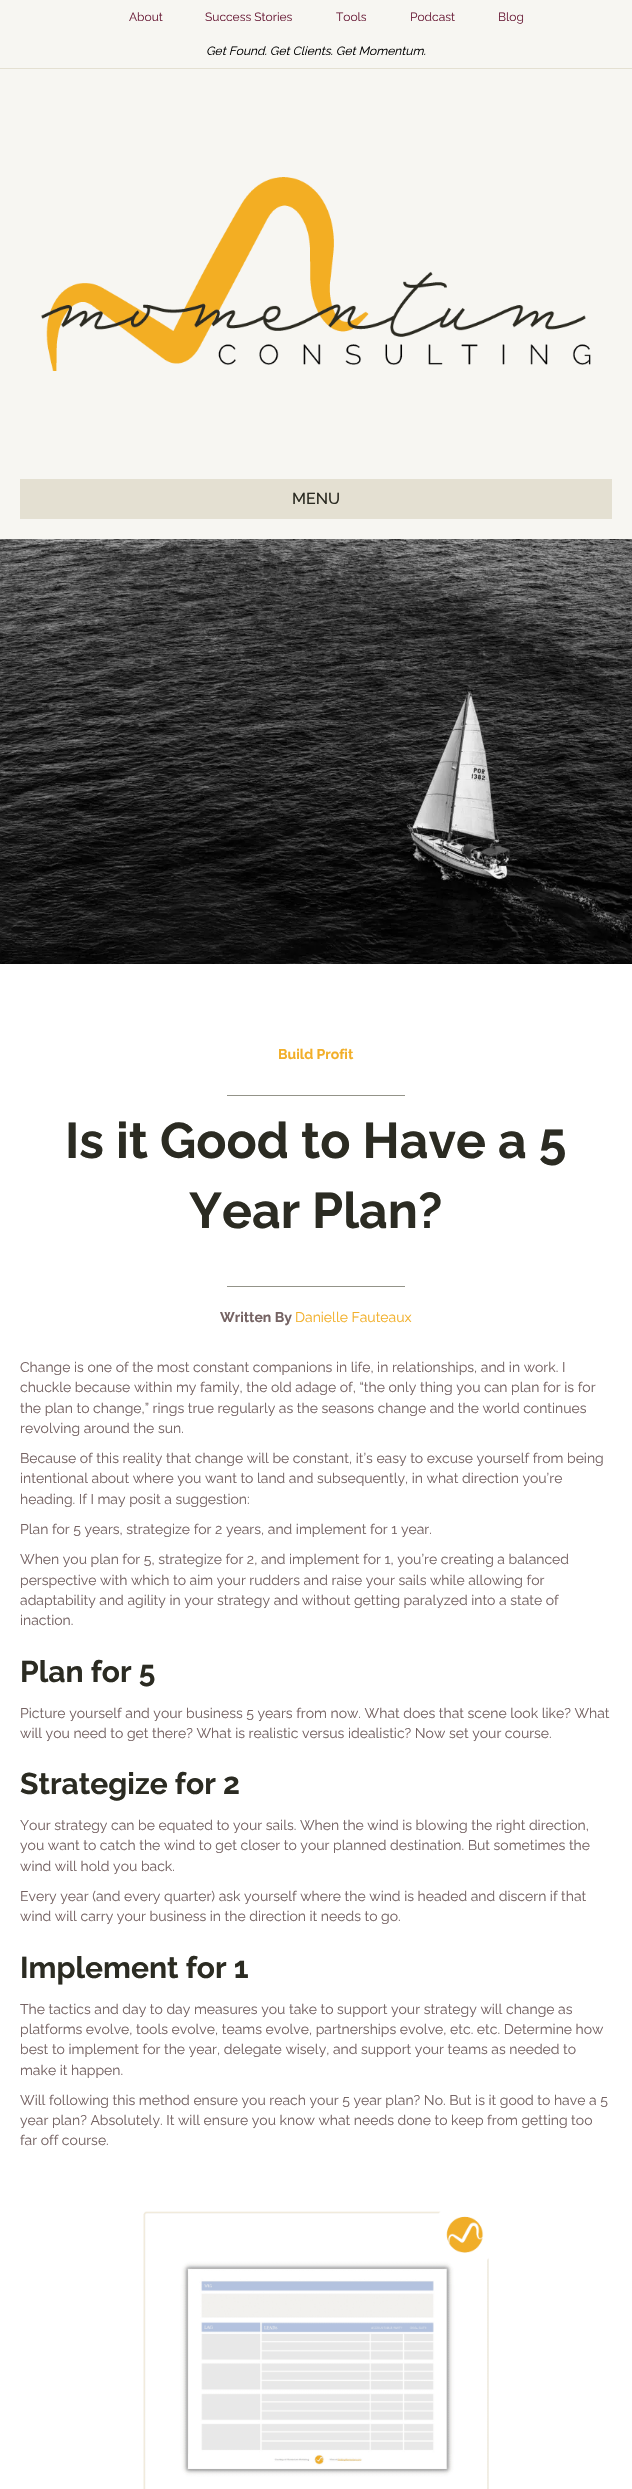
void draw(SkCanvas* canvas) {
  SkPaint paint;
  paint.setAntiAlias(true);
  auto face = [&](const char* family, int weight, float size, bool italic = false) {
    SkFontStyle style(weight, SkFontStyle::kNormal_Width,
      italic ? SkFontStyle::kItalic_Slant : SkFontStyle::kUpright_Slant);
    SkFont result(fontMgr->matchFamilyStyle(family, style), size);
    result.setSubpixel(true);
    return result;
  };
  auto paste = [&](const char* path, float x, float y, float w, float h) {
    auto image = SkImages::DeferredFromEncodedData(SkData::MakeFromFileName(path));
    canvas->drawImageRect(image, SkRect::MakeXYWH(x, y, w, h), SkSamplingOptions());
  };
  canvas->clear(0xfff7f6f2);
  paint.setColor(0xffe4e0d2);
  canvas->drawRect(SkRect::MakeXYWH(0, 68, 632, 1), paint);
  paste("img/1.png", 41, 177, 550, 194);
  canvas->drawRect(SkRect::MakeXYWH(20, 479, 592, 40), paint);
  paint.setColor(0xffffffff);
  canvas->drawRect(SkRect::MakeXYWH(0, 964, 632, 1525), paint);
  paste("img/2.png", 0, 539, 632, 425);
  paint.setColor(0xff939389);
  canvas->drawRect(SkRect::MakeXYWH(227, 1095, 178, 1), paint);
  canvas->drawRect(SkRect::MakeXYWH(227, 1286, 178, 1), paint);
  paste("img/3.png", 143, 2211, 346, 278);
  auto f0 = face("Raleway", 400, 12);
  paint.setColor(0xff6d213c);
  {
    const struct { const char* s; float x, y; } items[] = {
      {"About", 129, 21},
      {"Success Stories", 205, 21},
      {"Tools", 336, 21},
      {"Podcast", 410, 21},
      {"Blog", 498, 21},
    };
    for (auto [s, x, y] : items) {
      canvas->drawString(s, x, y, f0, paint);
    }
  }
  auto f1 = face("Raleway", 400, 12, true);
  paint.setColor(0xff000000);
  canvas->drawString("Get Found. Get Clients. Get Momentum.", 206, 55, f1, paint);
  auto f2 = face("Raleway", 500, 16);
  paint.setColor(0xff2b2b22);
  canvas->drawString("MENU", 292, 504, f2, paint);
  auto f3 = face("Raleway", 700, 14);
  paint.setColor(0xfff2af29);
  canvas->drawString("Build Profit", 278, 1059, f3, paint);
  auto f4 = face("Raleway", 700, 50);
  paint.setColor(0xff2b2b22);
  canvas->drawString("Is it Good to Have a 5", 65, 1158, f4, paint);
  canvas->drawString("Year Plan?", 189, 1228, f4, paint);
  paint.setColor(0xff756363);
  canvas->drawString("Written By", 220, 1322, f3, paint);
  auto f5 = face("Raleway", 400, 14);
  paint.setColor(0xfff2af29);
  canvas->drawString("Danielle Fauteaux", 295, 1322, f5, paint);
  paint.setColor(0xff756363);
  {
    const struct { const char* s; float x, y; } items[] = {
      {"Change is one of the most constant companions in life, in relationships, and in work. I", 20, 1372},
      {"chuckle because within my family, the old adage of, “the only thing you can plan for is for", 20, 1392},
      {"the plan to change,” rings true regularly as the seasons change and the world continues", 20, 1413},
      {"revolving around the sun.", 20, 1433},
      {"Because of this reality that change will be constant, it’s easy to excuse yourself from being", 20, 1463},
      {"intentional about where you want to land and subsequently, in what direction you’re", 20, 1483},
      {"heading. If I may posit a suggestion:", 20, 1504},
      {"Plan for 5 years, strategize for 2 years, and implement for 1 year.", 20, 1534},
      {"When you plan for 5, strategize for 2, and implement for 1, you’re creating a balanced", 20, 1564},
      {"perspective with which to aim your rudders and raise your sails while allowing for", 20, 1585},
      {"adaptability and agility in your strategy and without getting paralyzed into a state of", 20, 1605},
      {"inaction.", 20, 1625},
    };
    for (auto [s, x, y] : items) {
      canvas->drawString(s, x, y, f5, paint);
    }
  }
  auto f6 = face("Raleway", 700, 30);
  paint.setColor(0xff2b2b22);
  canvas->drawString("Plan for 5", 20, 1682, f6, paint);
  paint.setColor(0xff756363);
  canvas->drawString("Picture yourself and your business 5 years from now. What does that scene look like? What", 20, 1718, f5, paint);
  canvas->drawString("will you need to get there? What is realistic versus idealistic? Now set your course.", 20, 1738, f5, paint);
  paint.setColor(0xff2b2b22);
  canvas->drawString("Strategize for 2", 20, 1794, f6, paint);
  paint.setColor(0xff756363);
  {
    const struct { const char* s; float x, y; } items[] = {
      {"Your strategy can be equated to your sails. When the wind is blowing the right direction,", 20, 1830},
      {"you want to catch the wind to get closer to your planned destination. But sometimes the", 20, 1850},
      {"wind will hold you back.", 20, 1871},
      {"Every year (and every quarter) ask yourself where the wind is headed and discern if that", 20, 1901},
      {"wind will carry your business in the direction it needs to go.", 20, 1921},
    };
    for (auto [s, x, y] : items) {
      canvas->drawString(s, x, y, f5, paint);
    }
  }
  paint.setColor(0xff2b2b22);
  canvas->drawString("Implement for 1", 20, 1978, f6, paint);
  paint.setColor(0xff756363);
  {
    const struct { const char* s; float x, y; } items[] = {
      {"The tactics and day to day measures you take to support your strategy will change as", 20, 2014},
      {"platforms evolve, tools evolve, teams evolve, partnerships evolve, etc. etc. Determine how", 20, 2034},
      {"best to implement for the year, delegate wisely, and support your teams as needed to", 20, 2054},
      {"make it happen.", 20, 2075},
      {"Will following this method ensure you reach your 5 year plan? No. But is it good to have a 5", 20, 2105},
      {"year plan? Absolutely. It will ensure you know what needs done to keep from getting too", 20, 2125},
      {"far off course.", 20, 2145},
    };
    for (auto [s, x, y] : items) {
      canvas->drawString(s, x, y, f5, paint);
    }
  }
}
